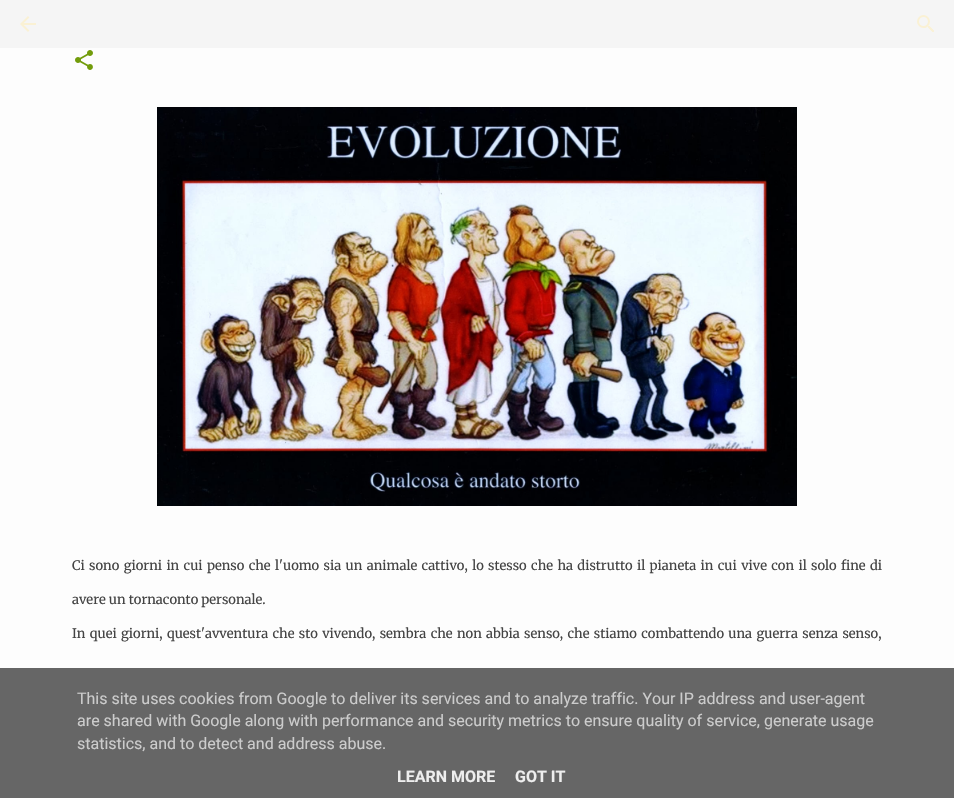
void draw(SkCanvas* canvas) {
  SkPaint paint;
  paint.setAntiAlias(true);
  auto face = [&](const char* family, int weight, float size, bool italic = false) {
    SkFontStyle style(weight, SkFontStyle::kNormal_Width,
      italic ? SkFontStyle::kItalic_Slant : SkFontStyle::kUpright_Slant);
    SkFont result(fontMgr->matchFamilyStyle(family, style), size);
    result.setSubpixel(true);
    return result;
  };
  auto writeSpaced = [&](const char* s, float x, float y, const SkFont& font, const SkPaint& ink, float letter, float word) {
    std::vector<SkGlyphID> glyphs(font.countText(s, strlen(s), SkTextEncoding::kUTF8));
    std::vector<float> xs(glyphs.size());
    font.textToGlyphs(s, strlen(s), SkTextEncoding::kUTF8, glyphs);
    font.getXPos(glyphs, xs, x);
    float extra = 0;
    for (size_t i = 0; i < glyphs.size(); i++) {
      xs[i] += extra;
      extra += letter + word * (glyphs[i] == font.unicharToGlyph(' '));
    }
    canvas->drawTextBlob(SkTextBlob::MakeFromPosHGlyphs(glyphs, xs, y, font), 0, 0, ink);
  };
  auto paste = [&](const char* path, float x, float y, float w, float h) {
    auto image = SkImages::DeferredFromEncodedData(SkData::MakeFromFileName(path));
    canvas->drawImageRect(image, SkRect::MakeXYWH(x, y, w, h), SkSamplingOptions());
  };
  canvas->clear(0xfffdfdfd);
  paint.setColor(0xfff5f5f5);
  canvas->drawRect(SkRect::MakeXYWH(0, 0, 954, 48), paint);
  paste("img/1.png", 20, 16, 16, 16);
  paste("img/2.png", 917, 15, 17, 17);
  paste("img/3.png", 75, 50, 18, 20);
  paste("img/4.png", 157, 107, 640, 399);
  paint.setColor(0xff666666);
  canvas->drawRect(SkRect::MakeXYWH(0, 668, 954, 130), paint);
  auto f0 = face("Merriweather", 300, 13);
  paint.setColor(0xff444444);
  writeSpaced("Ci sono giorni in cui penso che l'uomo sia un animale cattivo, lo stesso che ha distrutto il pianeta in cui vive con il solo fine di", 72, 570, f0, paint, 0, 1.3f);
  canvas->drawString("avere un tornaconto personale.", 72, 604, f0, paint);
  writeSpaced("In quei giorni, quest'avventura che sto vivendo, sembra che non abbia senso, che stiamo combattendo una guerra senza senso,", 72, 638, f0, paint, 0, 1.25f);
  auto f1 = face("Roboto", 400, 16);
  paint.setColor(0xffcccccc);
  {
    const struct { const char* s; float x, y; } items[] = {
      {"This site uses cookies from Google to deliver its services and to analyze traffic. Your IP address and user-agent", 77, 704},
      {"are shared with Google along with performance and security metrics to ensure quality of service, generate usage", 77, 726},
      {"statistics, and to detect and address abuse.", 77, 749},
    };
    for (auto [s, x, y] : items) {
      canvas->drawString(s, x, y, f1, paint);
    }
  }
  auto f2 = face("Roboto", 700, 16);
  paint.setColor(0xffeeeeee);
  canvas->drawString("LEARN MORE", 397, 782, f2, paint);
  canvas->drawString("GOT IT", 515, 782, f2, paint);
}
